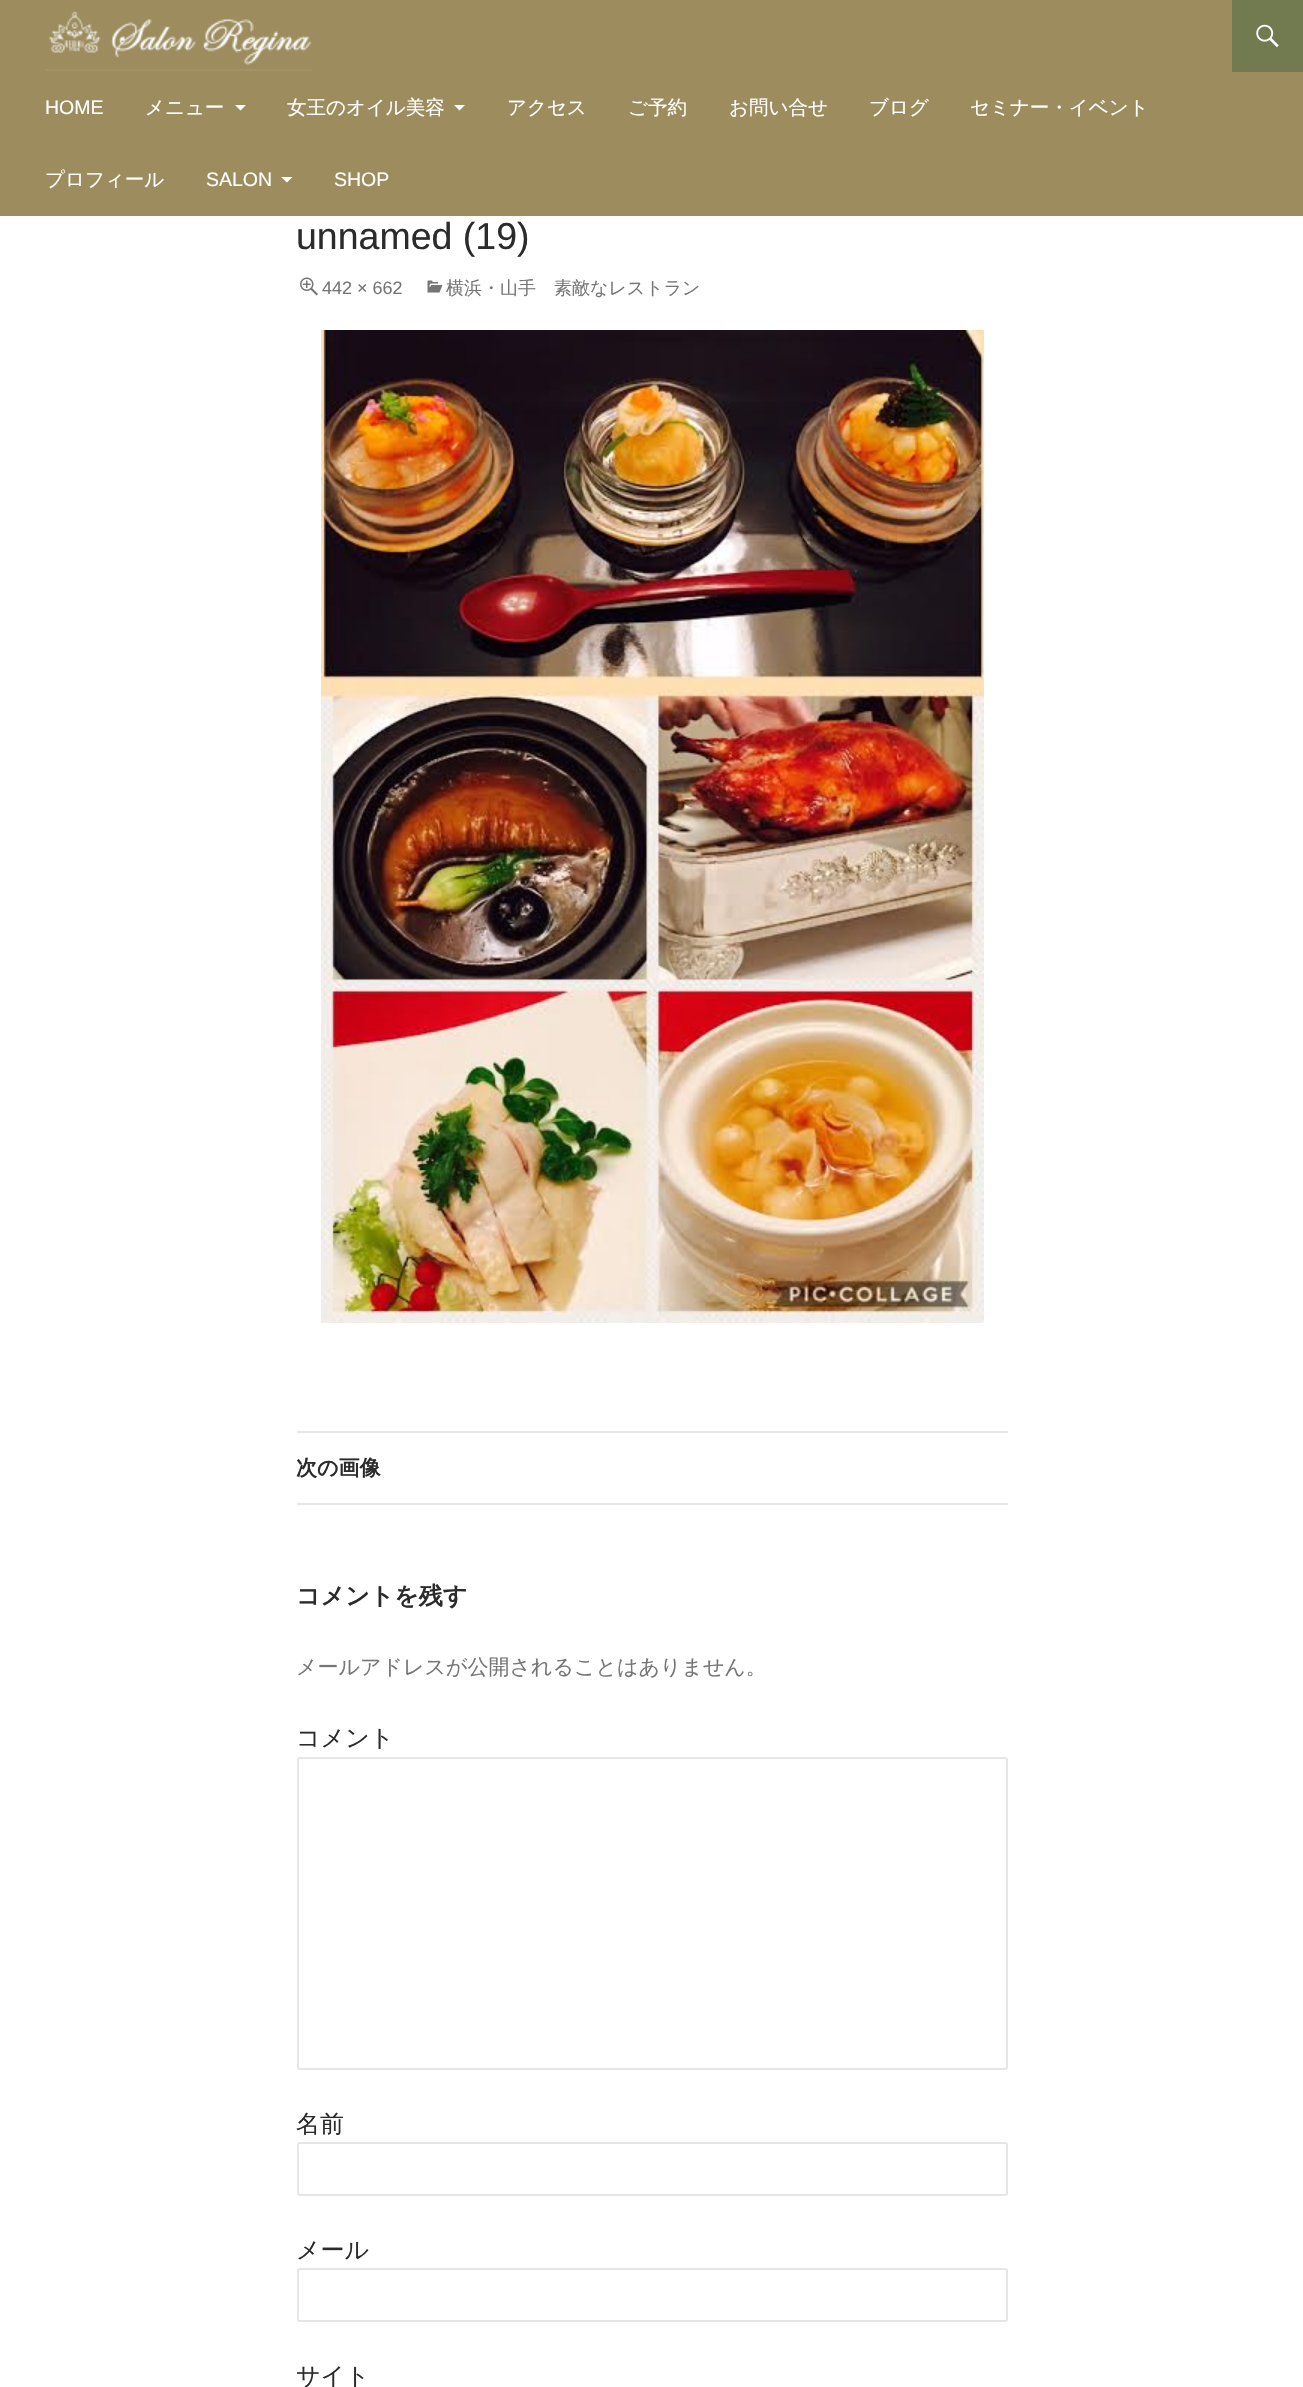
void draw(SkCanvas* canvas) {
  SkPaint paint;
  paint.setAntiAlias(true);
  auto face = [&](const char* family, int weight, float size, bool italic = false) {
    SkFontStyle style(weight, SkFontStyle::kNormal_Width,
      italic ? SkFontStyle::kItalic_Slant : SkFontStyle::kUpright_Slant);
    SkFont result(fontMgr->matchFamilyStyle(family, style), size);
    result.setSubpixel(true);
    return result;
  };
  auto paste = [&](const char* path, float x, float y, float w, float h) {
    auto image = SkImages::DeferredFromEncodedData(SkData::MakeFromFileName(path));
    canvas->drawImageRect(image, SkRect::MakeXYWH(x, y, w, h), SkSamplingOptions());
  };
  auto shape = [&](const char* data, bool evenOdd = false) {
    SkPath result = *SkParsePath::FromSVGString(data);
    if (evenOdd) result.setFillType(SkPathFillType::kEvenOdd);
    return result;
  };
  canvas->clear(0xffffffff);
  paint.setColor(0xff9d8c5e);
  canvas->drawRect(SkRect::MakeXYWH(0, 0, 1303, 216), paint);
  paste("img/1.png", 45, 11, 267, 60);
  paint.setColor(0xff727b50);
  canvas->drawRect(SkRect::MakeXYWH(1232, 0, 71, 72), paint);
  paste("img/2.png", 1256, 24, 23, 24);
  paint.setColor(0xffffffff);
  canvas->drawPath(shape("M235 105L240.5 110.5L246 105Z"), paint);
  canvas->drawPath(shape("M454 105L459.5 110.5L465 105Z"), paint);
  canvas->drawPath(shape("M281 177L287 182.5L292.5 177Z"), paint);
  paste("img/3.png", 300, 277, 18, 19);
  paste("img/4.png", 427, 280, 16, 13);
  paste("img/5.png", 321, 330, 663, 993);
  paint.setColor(0xffe6e6e6);
  canvas->drawRect(SkRect::MakeXYWH(297, 1431, 711, 2), paint);
  canvas->drawRect(SkRect::MakeXYWH(297, 1503, 711, 2), paint);
  paint.setStroke(true);
  paint.setStrokeWidth(2);
  canvas->drawRoundRect(SkRect::MakeXYWH(298, 1758, 709, 311), 2, 2, paint);
  canvas->drawRoundRect(SkRect::MakeXYWH(298, 2143, 709, 52), 2, 2, paint);
  canvas->drawRoundRect(SkRect::MakeXYWH(298, 2269, 709, 52), 2, 2, paint);
  auto f0 = face("Liberation Sans", 400, 19.5f);
  paint.setStroke(false);
  paint.setColor(0xffffffff);
  canvas->drawString("HOME", 45, 114, f0, paint);
  auto f1 = face("WenQuanYi Zen Hei", 500, 19.5f);
  {
    const struct { const char* s; float x, y; } items[] = {
      {"メニュー", 145, 114},
      {"女王のオイル美容", 287, 114},
      {"アクセス", 507, 114},
      {"ご予約", 628, 114},
      {"お問い合せ", 729, 114},
      {"ブログ", 869, 114},
      {"セミナー・イベント", 970, 114},
      {"プロフィール", 45, 186},
    };
    for (auto [s, x, y] : items) {
      canvas->drawString(s, x, y, f1, paint);
    }
  }
  canvas->drawString("SALON", 206, 186, f0, paint);
  canvas->drawString("SHOP", 334, 186, f0, paint);
  auto f2 = face("Liberation Sans", 400, 37.5f);
  paint.setColor(0xff2b2b2b);
  canvas->drawString("unnamed (19)", 296, 249, f2, paint);
  auto f3 = face("Liberation Sans", 400, 18);
  paint.setColor(0xff767676);
  canvas->drawString("442 × 662", 322, 294, f3, paint);
  auto f4 = face("WenQuanYi Zen Hei", 500, 18);
  canvas->drawString("横浜・山手　素敵なレストラン", 446, 294, f4, paint);
  auto f5 = face("WenQuanYi Zen Hei", 700, 21);
  paint.setColor(0xff2b2b2b);
  canvas->drawString("次の画像", 296, 1475, f5, paint);
  auto f6 = face("WenQuanYi Zen Hei", 700, 24);
  canvas->drawString("コメントを残す", 296, 1604, f6, paint);
  auto f7 = face("WenQuanYi Zen Hei", 500, 21);
  paint.setColor(0xff767676);
  canvas->drawString("メールアドレスが公開されることはありません。", 296, 1674, f7, paint);
  auto f8 = face("WenQuanYi Zen Hei", 500, 24);
  paint.setColor(0xff2b2b2b);
  {
    const struct { const char* s; float x, y; } items[] = {
      {"コメント", 296, 1746},
      {"名前", 296, 2132},
      {"メール", 296, 2258},
      {"サイト", 296, 2384},
    };
    for (auto [s, x, y] : items) {
      canvas->drawString(s, x, y, f8, paint);
    }
  }
}
